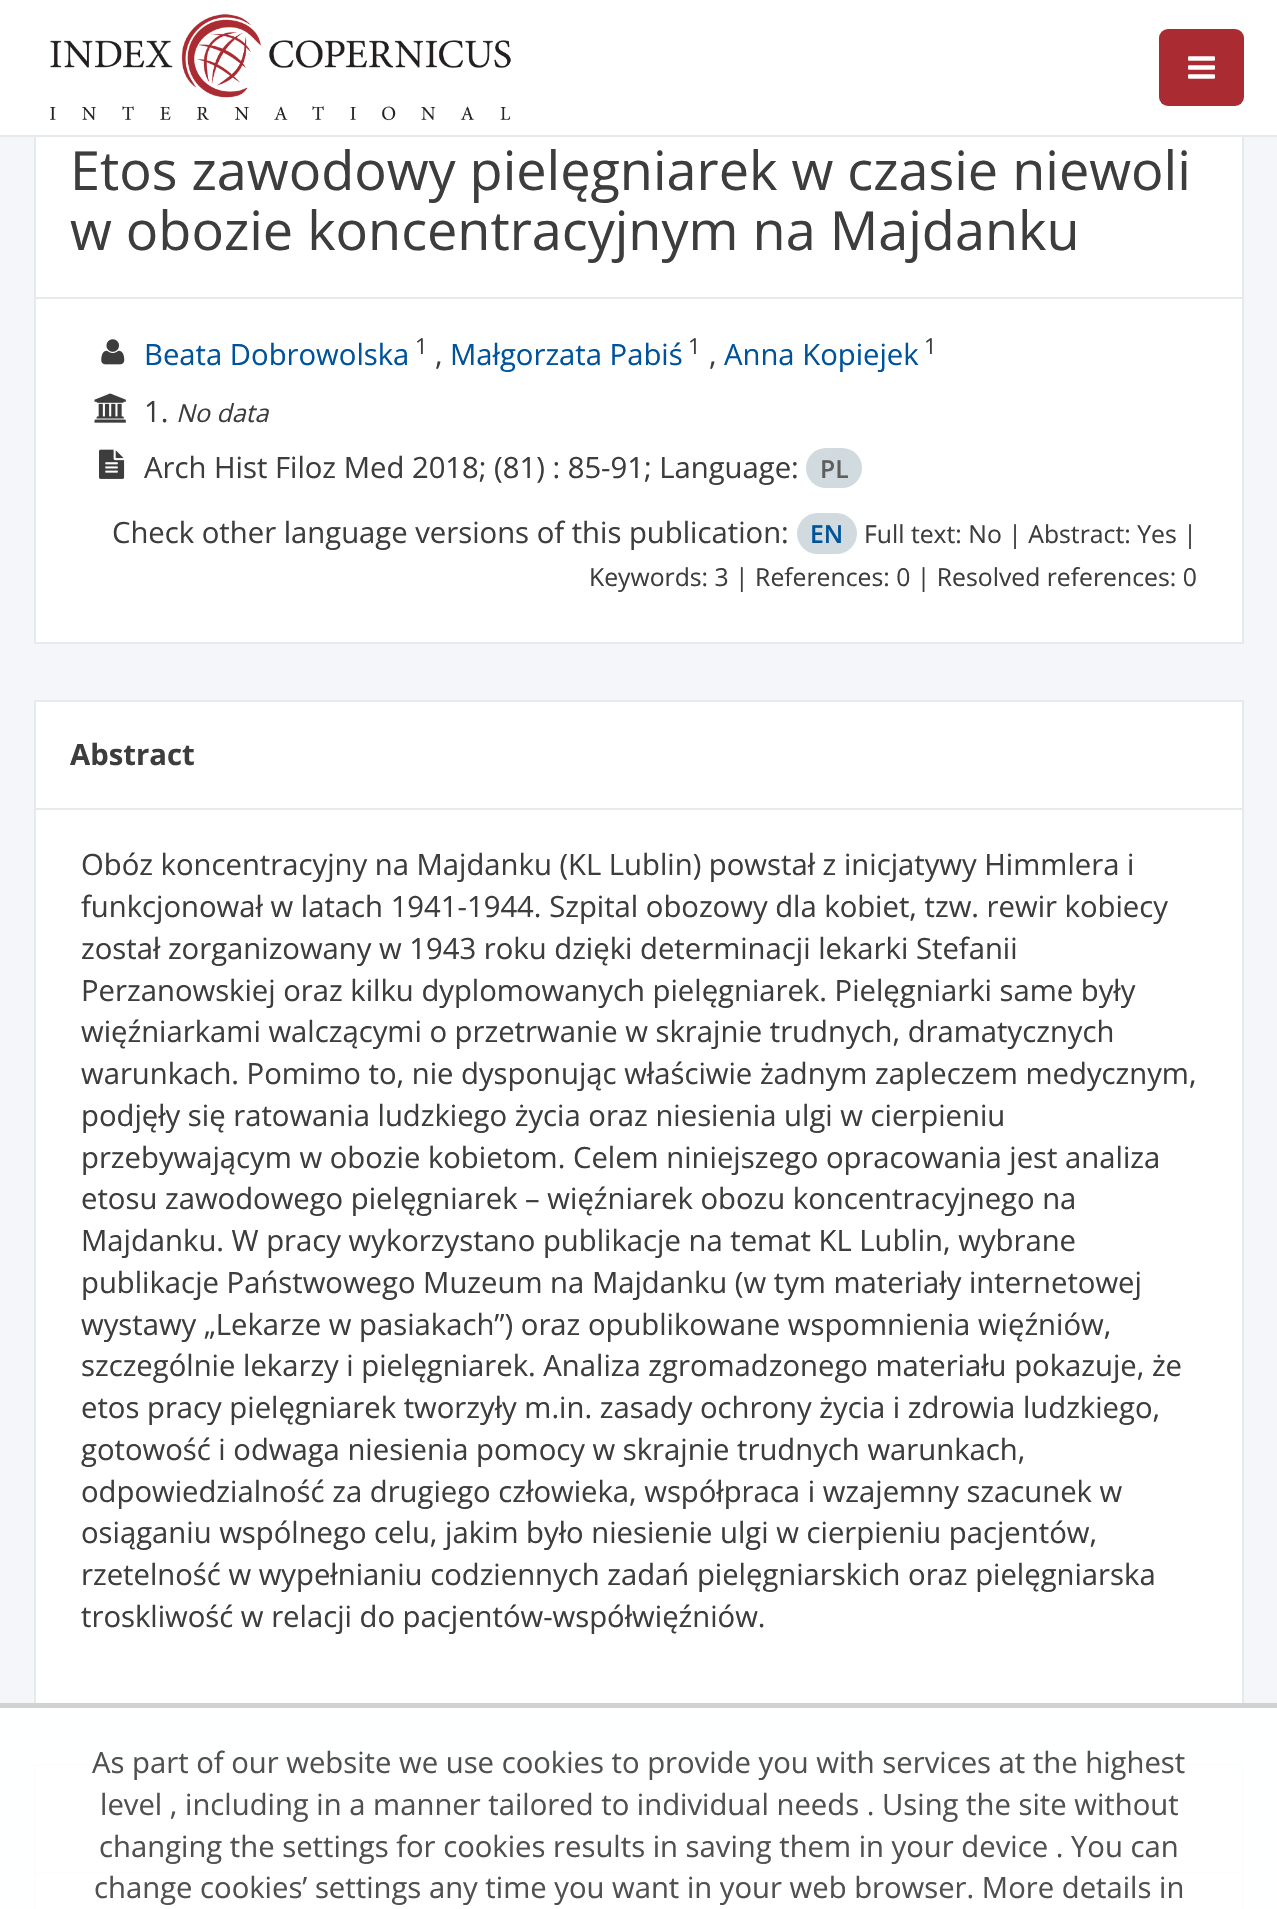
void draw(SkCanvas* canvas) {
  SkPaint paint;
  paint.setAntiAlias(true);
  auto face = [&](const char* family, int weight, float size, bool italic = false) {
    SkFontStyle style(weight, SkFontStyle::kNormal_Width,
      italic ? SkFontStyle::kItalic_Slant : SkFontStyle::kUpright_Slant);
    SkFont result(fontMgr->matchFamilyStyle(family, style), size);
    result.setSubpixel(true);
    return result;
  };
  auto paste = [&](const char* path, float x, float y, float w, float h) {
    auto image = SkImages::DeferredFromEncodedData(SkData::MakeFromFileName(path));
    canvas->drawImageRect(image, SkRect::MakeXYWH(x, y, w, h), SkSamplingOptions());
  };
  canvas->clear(0xfff4f6fa);
  paint.setColor(0xffffffff);
  canvas->drawRect(SkRect::MakeXYWH(0, 0, 1277, 135), paint);
  paint.setColor(0xffe7eaec);
  canvas->drawRect(SkRect::MakeXYWH(0, 135, 1277, 2), paint);
  paste("img/1.png", 50, 14, 461, 107);
  paint.setColor(0xffaa2b31);
  canvas->drawRoundRect(SkRect::MakeXYWH(1159, 29, 85, 77), 9, 9, paint);
  paste("img/2.png", 1188, 56, 27, 23);
  {
    const struct { float x, y, w, h; SkColor color; } items[] = {
      {36, 137, 1206, 160, 0xffffffff},
      {1242, 137, 2, 160, 0xffe7eaec},
      {34, 137, 2, 160, 0xffe7eaec},
    };
    for (auto [x, y, w, h, color] : items) {
      paint.setColor(color);
      canvas->drawRect(SkRect::MakeXYWH(x, y, w, h), paint);
    }
  }
  paint.setColor(0xffffffff);
  canvas->drawRect(SkRect::MakeXYWH(35, 298, 1208, 345), paint);
  paint.setStroke(true);
  paint.setStrokeWidth(2);
  paint.setColor(0xffe7eaec);
  canvas->drawRect(SkRect::MakeXYWH(35, 298, 1208, 345), paint);
  paste("img/3.png", 101, 339, 24, 26);
  paste("img/4.png", 94, 393, 32, 30);
  paste("img/5.png", 99, 449, 26, 30);
  paint.setStroke(false);
  paint.setColor(0xffd1dade);
  canvas->drawRoundRect(SkRect::MakeXYWH(806, 448, 56, 40), 20, 20, paint);
  canvas->drawRoundRect(SkRect::MakeXYWH(797, 513, 60, 41), 20.5f, 20.5f, paint);
  {
    const struct { float x, y, w, h; SkColor color; } items[] = {
      {36, 702, 1206, 106, 0xffffffff},
      {34, 700, 1210, 2, 0xffe7eaec},
      {1242, 700, 2, 108, 0xffe7eaec},
      {34, 700, 2, 108, 0xffe7eaec},
      {36, 810, 1206, 893, 0xffffffff},
    };
    for (auto [x, y, w, h, color] : items) {
      paint.setColor(color);
      canvas->drawRect(SkRect::MakeXYWH(x, y, w, h), paint);
    }
  }
  paint.setStroke(true);
  paint.setColor(0xffe7eaec);
  canvas->drawRect(SkRect::MakeXYWH(35, 809, 1208, 898), paint);
  paint.setStroke(false);
  {
    const struct { float x, y, w, h; SkColor color; } items[] = {
      {36, 1766, 1206, 106, 0xffffffff},
      {34, 1764, 1210, 2, 0xffe7eaec},
      {1242, 1764, 2, 108, 0xffe7eaec},
      {34, 1764, 2, 108, 0xffe7eaec},
    };
    for (auto [x, y, w, h, color] : items) {
      paint.setColor(color);
      canvas->drawRect(SkRect::MakeXYWH(x, y, w, h), paint);
    }
  }
  paint.setColor(0xffffffff);
  canvas->drawRect(SkRect::MakeXYWH(35, 1873, 1208, 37), paint);
  paint.setStroke(true);
  paint.setColor(0xffe7eaec);
  canvas->drawRect(SkRect::MakeXYWH(35, 1873, 1208, 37), paint);
  paint.setStroke(false);
  paint.setColor(0xe6ffffff);
  canvas->drawRect(SkRect::MakeXYWH(0, 1708, 1277, 201), paint);
  paint.setColor(0xffd1d1d1);
  canvas->drawRect(SkRect::MakeXYWH(0, 1703, 1277, 5), paint);
  auto f0 = face("Open Sans", 400, 54);
  paint.setColor(0xff3d3d3d);
  canvas->drawString("Etos zawodowy pielęgniarek w czasie niewoli", 70, 190, f0, paint);
  canvas->drawString("w obozie koncentracyjnym na Majdanku", 70, 250, f0, paint);
  auto f1 = face("Open Sans", 400, 29.25f);
  paint.setColor(0xff00539b);
  canvas->drawString("Beata Dobrowolska", 144, 365, f1, paint);
  auto f2 = face("Open Sans", 400, 22);
  paint.setColor(0xff3d3d3d);
  canvas->drawString("1", 415, 354, f2, paint);
  canvas->drawString(",", 435, 365, f1, paint);
  paint.setColor(0xff00539b);
  canvas->drawString("Małgorzata Pabiś", 450, 365, f1, paint);
  paint.setColor(0xff3d3d3d);
  canvas->drawString("1", 688, 354, f2, paint);
  canvas->drawString(",", 709, 365, f1, paint);
  paint.setColor(0xff00539b);
  canvas->drawString("Anna Kopiejek", 724, 365, f1, paint);
  paint.setColor(0xff3d3d3d);
  canvas->drawString("1", 924, 354, f2, paint);
  canvas->drawString("1.", 144, 422, f1, paint);
  auto f3 = face("Open Sans", 400, 25, true);
  canvas->drawString("No data", 176, 422, f3, paint);
  canvas->drawString("Arch Hist Filoz Med 2018; (81) : 85-91; Language:", 144, 478, f1, paint);
  auto f4 = face("Open Sans", 600, 24.75f);
  paint.setColor(0xff5e5e5e);
  canvas->drawString("PL", 820, 478, f4, paint);
  paint.setColor(0xff3d3d3d);
  canvas->drawString("Check other language versions of this publication:", 112, 543, f1, paint);
  paint.setColor(0xff00539b);
  canvas->drawString("EN", 810, 543, f4, paint);
  auto f5 = face("Open Sans", 400, 24.75f);
  paint.setColor(0xff3d3d3d);
  canvas->drawString("Full text: No | Abstract: Yes |", 864, 543, f5, paint);
  canvas->drawString("Keywords: 3 | References: 0 | Resolved references: 0", 589, 586, f5, paint);
  auto f6 = face("Open Sans", 700, 29.25f);
  canvas->drawString("Abstract", 70, 765, f6, paint);
  {
    const struct { const char* s; float x, y; } items[] = {
      {"Obóz koncentracyjny na Majdanku (KL Lublin) powstał z inicjatywy Himmlera i", 81, 875},
      {"funkcjonował w latach 1941-1944. Szpital obozowy dla kobiet, tzw. rewir kobiecy", 81, 917},
      {"został zorganizowany w 1943 roku dzięki determinacji lekarki Stefanii", 81, 959},
      {"Perzanowskiej oraz kilku dyplomowanych pielęgniarek. Pielęgniarki same były", 81, 1001},
      {"więźniarkami walczącymi o przetrwanie w skrajnie trudnych, dramatycznych", 81, 1042},
      {"warunkach. Pomimo to, nie dysponując właściwie żadnym zapleczem medycznym,", 81, 1084},
      {"podjęły się ratowania ludzkiego życia oraz niesienia ulgi w cierpieniu", 81, 1126},
      {"przebywającym w obozie kobietom. Celem niniejszego opracowania jest analiza", 81, 1168},
      {"etosu zawodowego pielęgniarek – więźniarek obozu koncentracyjnego na", 81, 1209},
      {"Majdanku. W pracy wykorzystano publikacje na temat KL Lublin, wybrane", 81, 1251},
      {"publikacje Państwowego Muzeum na Majdanku (w tym materiały internetowej", 81, 1293},
      {"wystawy „Lekarze w pasiakach”) oraz opublikowane wspomnienia więźniów,", 81, 1335},
      {"szczególnie lekarzy i pielęgniarek. Analiza zgromadzonego materiału pokazuje, że", 81, 1376},
      {"etos pracy pielęgniarek tworzyły m.in. zasady ochrony życia i zdrowia ludzkiego,", 81, 1418},
      {"gotowość i odwaga niesienia pomocy w skrajnie trudnych warunkach,", 81, 1460},
      {"odpowiedzialność za drugiego człowieka, współpraca i wzajemny szacunek w", 81, 1502},
      {"osiąganiu wspólnego celu, jakim było niesienie ulgi w cierpieniu pacjentów,", 81, 1543},
      {"rzetelność w wypełnianiu codziennych zadań pielęgniarskich oraz pielęgniarska", 81, 1585},
      {"troskliwość w relacji do pacjentów-współwięźniów.", 81, 1627},
    };
    for (auto [s, x, y] : items) {
      canvas->drawString(s, x, y, f1, paint);
    }
  }
  paint.setColor(0xff505050);
  {
    const struct { const char* s; float x, y; } items[] = {
      {"As part of our website we use cookies to provide you with services at the highest", 92, 1773},
      {"level , including in a manner tailored to individual needs . Using the site without", 100, 1815},
      {"changing the settings for cookies results in saving them in your device . You can", 99, 1857},
      {"change cookies’ settings any time you want in your web browser. More details in", 94, 1898},
    };
    for (auto [s, x, y] : items) {
      canvas->drawString(s, x, y, f1, paint);
    }
  }
}
